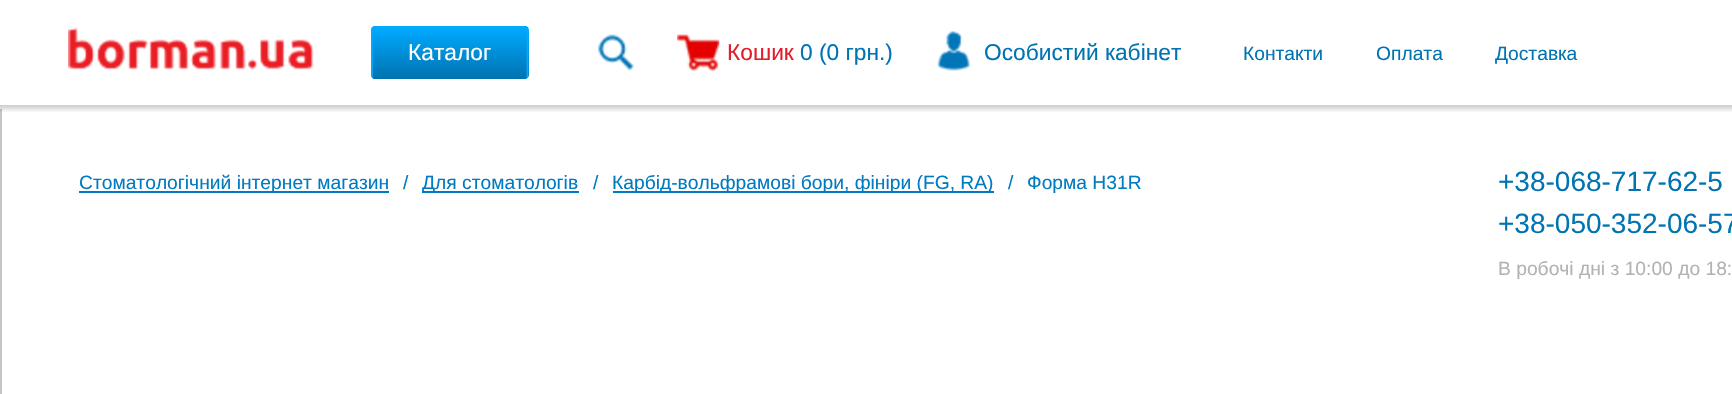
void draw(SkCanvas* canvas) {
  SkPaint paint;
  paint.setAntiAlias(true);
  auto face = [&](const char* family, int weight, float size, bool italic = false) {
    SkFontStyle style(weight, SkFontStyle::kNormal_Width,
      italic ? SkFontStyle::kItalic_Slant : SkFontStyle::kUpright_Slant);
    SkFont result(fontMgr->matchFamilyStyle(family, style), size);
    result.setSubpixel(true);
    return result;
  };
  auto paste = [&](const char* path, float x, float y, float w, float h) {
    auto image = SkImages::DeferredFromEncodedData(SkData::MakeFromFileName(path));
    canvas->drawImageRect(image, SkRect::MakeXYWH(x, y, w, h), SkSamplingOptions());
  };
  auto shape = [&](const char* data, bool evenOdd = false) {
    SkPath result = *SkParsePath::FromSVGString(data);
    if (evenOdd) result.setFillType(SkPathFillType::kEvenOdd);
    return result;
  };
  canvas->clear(0xffffffff);
  paint.setColor(0xffc5c5c5);
  canvas->drawRect(SkRect::MakeXYWH(0, 105, 2, 289), paint);
  paint.setColor(0xffffffff);
  canvas->drawRect(SkRect::MakeXYWH(0, 105, 2, 4), paint);
  canvas->save();
  canvas->clipRect(SkRect::MakeXYWH(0, 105, 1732, 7));
  paint.setColor(0x33000000);
  paint.setMaskFilter(SkMaskFilter::MakeBlur(kNormal_SkBlurStyle, 2.5f));
  canvas->drawRect(SkRect::MakeXYWH(-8, 4, 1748, 105), paint);
  paint.setMaskFilter(nullptr);
  canvas->restore();
  paste("img/1.png", 68, 27, 246, 43);
  canvas->save();
  canvas->clipPath(shape("M375 26H525C527 26 529 28 529 30V75C529 77 527 79 525 79H375C373 79 371 77 371 75V30C371 28 373 26 375 26Z"), true);
  {
    const SkColor colors[] = {0xff00aaff, 0xff0074b2};
    const float stops[] = {0, 1};
    const SkPoint ends[] = {{450, -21}, {450, 28}};
    paint.setShader(SkGradientShader::MakeLinear(ends, colors, stops, 2, SkTileMode::kClamp));
    paint.setAlpha(255);
  }
  canvas->drawRect(SkRect::MakeXYWH(371, 26, 158, 2), paint);
  {
    const SkColor colors[] = {0xff00aaff, 0xff0074b2};
    const float stops[] = {0, 1};
    const SkPoint ends[] = {{450, 28}, {450, 77}};
    paint.setShader(SkGradientShader::MakeLinear(ends, colors, stops, 2, SkTileMode::kClamp));
    paint.setAlpha(255);
  }
  canvas->drawRect(SkRect::MakeXYWH(371, 28, 158, 49), paint);
  {
    const SkColor colors[] = {0xff00aaff, 0xff0074b2};
    const float stops[] = {0, 1};
    const SkPoint ends[] = {{450, 77}, {450, 126}};
    paint.setShader(SkGradientShader::MakeLinear(ends, colors, stops, 2, SkTileMode::kClamp));
    paint.setAlpha(255);
  }
  canvas->drawRect(SkRect::MakeXYWH(371, 77, 158, 2), paint);
  canvas->restore();
  paint.setStroke(true);
  paint.setStrokeWidth(1.8f);
  paint.setShader(nullptr);
  paint.setColor(0xff0074b2);
  canvas->drawPath(shape("M527 77L525 78H374.5L372.5 77"), paint);
  paint.setColor(0xff00aaff);
  canvas->drawPath(shape("M372.5 77L372 75V30L372.5 28L374.5 27H525L527 28L527.5 30V75L527 77"), paint);
  paste("img/2.png", 598, 34, 36, 37);
  paste("img/3.png", 677, 34, 43, 37);
  paste("img/4.png", 937, 31, 33, 40);
  paint.setStroke(false);
  {
    const struct { float x, y, w, h; SkColor color; } items[] = {
      {79, 191, 310, 2, 0xff007ac1},
      {422, 191, 157, 2, 0xff007ac1},
      {613, 191, 381, 2, 0xff007ac1},
    };
    for (auto [x, y, w, h, color] : items) {
      paint.setColor(color);
      canvas->drawRect(SkRect::MakeXYWH(x, y, w, h), paint);
    }
  }
  auto f0 = face("Liberation Sans", 400, 22.75f);
  paint.setColor(0xffffffff);
  canvas->drawString("Каталог", 408, 60, f0, paint);
  paint.setColor(0xffe01e2c);
  canvas->drawString("Кошик", 727, 60, f0, paint);
  paint.setColor(0xff0074b2);
  canvas->drawString("0 (0 грн.)", 800, 60, f0, paint);
  canvas->drawString("Особистий кабінет", 984, 60, f0, paint);
  auto f1 = face("Liberation Sans", 400, 19.25f);
  {
    const struct { const char* s; float x, y; } items[] = {
      {"Контакти", 1243, 60},
      {"Оплата", 1376, 60},
      {"Доставка", 1495, 60},
    };
    for (auto [s, x, y] : items) {
      canvas->drawString(s, x, y, f1, paint);
    }
  }
  paint.setColor(0xff007ac1);
  {
    const struct { const char* s; float x, y; } items[] = {
      {"Стоматологічний інтернет магазин", 79, 189},
      {"/", 403, 189},
      {"Для стоматологів", 422, 189},
      {"/", 593, 189},
      {"Карбід-вольфрамові бори, фініри (FG, RA)", 612, 189},
      {"/", 1008, 189},
      {"Форма H31R", 1027, 189},
    };
    for (auto [s, x, y] : items) {
      canvas->drawString(s, x, y, f1, paint);
    }
  }
  auto f2 = face("Liberation Sans", 400, 28);
  paint.setColor(0xff0074b2);
  canvas->drawString("+38-068-717-62-5", 1498, 191, f2, paint);
  canvas->drawString("+38-050-352-06-57", 1498, 233, f2, paint);
  paint.setColor(0xffb2b2b2);
  canvas->drawString("В робочі дні з 10:00 до 18:", 1498, 275, f1, paint);
}
